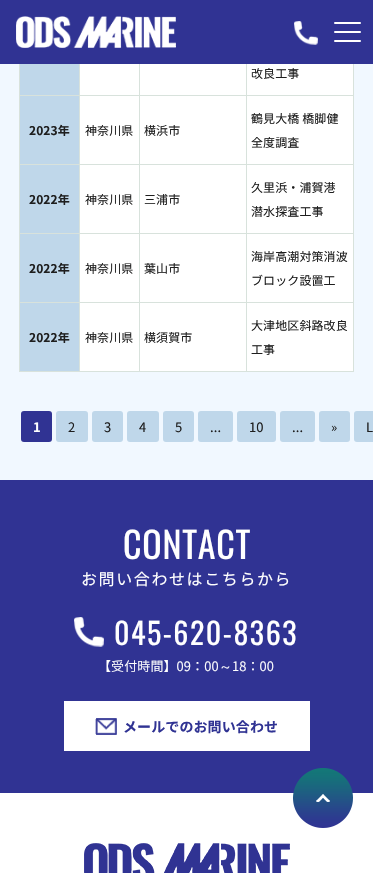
void draw(SkCanvas* canvas) {
  SkPaint paint;
  paint.setAntiAlias(true);
  auto face = [&](const char* family, int weight, float size, bool italic = false) {
    SkFontStyle style(weight, SkFontStyle::kNormal_Width,
      italic ? SkFontStyle::kItalic_Slant : SkFontStyle::kUpright_Slant);
    SkFont result(fontMgr->matchFamilyStyle(family, style), size);
    result.setSubpixel(true);
    return result;
  };
  auto writeSpaced = [&](const char* s, float x, float y, const SkFont& font, const SkPaint& ink, float letter, float word) {
    std::vector<SkGlyphID> glyphs(font.countText(s, strlen(s), SkTextEncoding::kUTF8));
    std::vector<float> xs(glyphs.size());
    font.textToGlyphs(s, strlen(s), SkTextEncoding::kUTF8, glyphs);
    font.getXPos(glyphs, xs, x);
    float extra = 0;
    for (size_t i = 0; i < glyphs.size(); i++) {
      xs[i] += extra;
      extra += letter + word * (glyphs[i] == font.unicharToGlyph(' '));
    }
    canvas->drawTextBlob(SkTextBlob::MakeFromPosHGlyphs(glyphs, xs, y, font), 0, 0, ink);
  };
  auto paste = [&](const char* path, float x, float y, float w, float h) {
    auto image = SkImages::DeferredFromEncodedData(SkData::MakeFromFileName(path));
    canvas->drawImageRect(image, SkRect::MakeXYWH(x, y, w, h), SkSamplingOptions());
  };
  canvas->clear(0xffffffff);
  paint.setColor(0xff303393);
  canvas->drawRect(SkRect::MakeXYWH(0, 0, 373, 64), paint);
  paste("img/1.png", 16, 16, 160, 32);
  paste("img/2.png", 294, 21, 24, 24);
  paint.setColor(0xffffffff);
  canvas->drawRoundRect(SkRect::MakeXYWH(334, 22, 27, 2), 1, 1, paint);
  canvas->drawRoundRect(SkRect::MakeXYWH(334, 31, 27, 2), 1, 1, paint);
  canvas->drawRoundRect(SkRect::MakeXYWH(334, 40, 27, 2), 1, 1, paint);
  {
    const struct { float x, y, w, h; SkColor color; } items[] = {
      {0, 64, 373, 416, 0xfff1f8ff},
      {20, 64, 59, 31, 0xffbfd7ea},
      {80, 64, 59, 31, 0xffffffff},
      {246, 95, 108, 1, 0xffd8e2dc},
      {246, 164, 108, 1, 0xffd8e2dc},
      {246, 233, 108, 1, 0xffd8e2dc},
      {246, 302, 108, 1, 0xffd8e2dc},
      {353, 302, 1, 70, 0xffd8e2dc},
      {246, 371, 108, 1, 0xffd8e2dc},
      {246, 302, 1, 70, 0xffd8e2dc},
      {139, 302, 108, 1, 0xffd8e2dc},
      {246, 233, 1, 70, 0xffd8e2dc},
      {139, 233, 108, 1, 0xffd8e2dc},
      {246, 164, 1, 70, 0xffd8e2dc},
      {139, 164, 108, 1, 0xffd8e2dc},
      {246, 95, 1, 70, 0xffd8e2dc},
      {139, 95, 108, 1, 0xffd8e2dc},
      {139, 371, 108, 1, 0xffd8e2dc},
      {139, 302, 1, 70, 0xffd8e2dc},
      {79, 302, 61, 1, 0xffd8e2dc},
      {139, 233, 1, 70, 0xffd8e2dc},
      {79, 233, 61, 1, 0xffd8e2dc},
      {139, 164, 1, 70, 0xffd8e2dc},
      {79, 164, 61, 1, 0xffd8e2dc},
      {139, 95, 1, 70, 0xffd8e2dc},
      {79, 95, 61, 1, 0xffd8e2dc},
      {79, 371, 61, 1, 0xffd8e2dc},
      {79, 302, 1, 70, 0xffd8e2dc},
      {19, 302, 61, 1, 0xffd8e2dc},
      {79, 233, 1, 70, 0xffd8e2dc},
      {19, 233, 61, 1, 0xffd8e2dc},
      {79, 164, 1, 70, 0xffd8e2dc},
      {19, 164, 61, 1, 0xffd8e2dc},
      {79, 95, 1, 70, 0xffd8e2dc},
      {19, 95, 61, 1, 0xffd8e2dc},
      {79, 64, 1, 32, 0xffd8e2dc},
      {140, 64, 106, 31, 0xffffffff},
      {139, 64, 1, 32, 0xffd8e2dc},
      {247, 64, 106, 31, 0xffffffff},
      {246, 64, 1, 32, 0xffd8e2dc},
      {20, 96, 59, 68, 0xffbfd7ea},
      {19, 371, 61, 1, 0xffd8e2dc},
      {19, 302, 1, 70, 0xffd8e2dc},
      {19, 233, 1, 70, 0xffd8e2dc},
      {19, 164, 1, 70, 0xffd8e2dc},
      {19, 64, 1, 101, 0xffd8e2dc},
      {80, 96, 59, 68, 0xffffffff},
      {140, 96, 106, 68, 0xffffffff},
      {247, 96, 106, 68, 0xffffffff},
      {353, 233, 1, 70, 0xffd8e2dc},
      {353, 164, 1, 70, 0xffd8e2dc},
      {353, 64, 1, 101, 0xffd8e2dc},
      {20, 165, 59, 68, 0xffbfd7ea},
      {80, 165, 59, 68, 0xffffffff},
      {140, 165, 106, 68, 0xffffffff},
      {247, 165, 106, 68, 0xffffffff},
      {20, 234, 59, 68, 0xffbfd7ea},
      {80, 234, 59, 68, 0xffffffff},
      {140, 234, 106, 68, 0xffffffff},
      {247, 234, 106, 68, 0xffffffff},
      {20, 303, 59, 68, 0xffbfd7ea},
      {80, 303, 59, 68, 0xffffffff},
      {140, 303, 106, 68, 0xffffffff},
      {247, 303, 106, 68, 0xffffffff},
    };
    for (auto [x, y, w, h, color] : items) {
      paint.setColor(color);
      canvas->drawRect(SkRect::MakeXYWH(x, y, w, h), paint);
    }
  }
  paint.setColor(0xff303393);
  canvas->drawRoundRect(SkRect::MakeXYWH(21, 411, 31, 31), 3, 3, paint);
  paint.setColor(0xffbfd7ea);
  canvas->drawRoundRect(SkRect::MakeXYWH(56, 411, 32, 31), 3, 3, paint);
  canvas->drawRoundRect(SkRect::MakeXYWH(92, 411, 31, 31), 3, 3, paint);
  canvas->drawRoundRect(SkRect::MakeXYWH(127, 411, 32, 31), 3, 3, paint);
  canvas->drawRoundRect(SkRect::MakeXYWH(163, 411, 31, 31), 3, 3, paint);
  canvas->drawRoundRect(SkRect::MakeXYWH(237, 411, 39, 31), 3, 3, paint);
  canvas->drawRoundRect(SkRect::MakeXYWH(319, 411, 31, 31), 3, 3, paint);
  canvas->drawRoundRect(SkRect::MakeXYWH(354, 411, 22, 31), 3, 3, paint);
  canvas->drawRoundRect(SkRect::MakeXYWH(198, 411, 35, 31), 3, 3, paint);
  canvas->drawRoundRect(SkRect::MakeXYWH(280, 411, 35, 31), 3, 3, paint);
  paint.setColor(0xff303393);
  canvas->drawRect(SkRect::MakeXYWH(0, 480, 373, 313), paint);
  paste("img/3.png", 293, 768, 60, 60);
  paste("img/4.png", 74, 617, 30, 30);
  paint.setColor(0xffffffff);
  canvas->drawRect(SkRect::MakeXYWH(64, 701, 246, 50), paint);
  paste("img/5.png", 95, 718, 22, 17);
  paste("img/6.png", 84, 843, 206, 30);
  auto f0 = face("Noto Sans JP", 400, 12);
  paint.setColor(0xff1e1e1e);
  writeSpaced("改良工事", 251, 78, f0, paint, 0.1f, 0);
  auto f1 = face("Noto Sans JP", 700, 12);
  writeSpaced("2023年", 29, 135, f1, paint, 0.1f, 0);
  {
    const struct { const char* s; float x, y; } items[] = {
      {"神奈川県", 85, 135},
      {"横浜市", 144, 135},
      {"鶴見大橋 橋脚健", 251, 123},
      {"全度調査", 251, 147},
    };
    for (auto [s, x, y] : items) {
      writeSpaced(s, x, y, f0, paint, 0.1f, 0);
    }
  }
  writeSpaced("2022年", 29, 204, f1, paint, 0.1f, 0);
  {
    const struct { const char* s; float x, y; } items[] = {
      {"神奈川県", 85, 204},
      {"三浦市", 144, 204},
      {"久里浜・浦賀港", 251, 192},
      {"潜水探査工事", 251, 216},
    };
    for (auto [s, x, y] : items) {
      writeSpaced(s, x, y, f0, paint, 0.1f, 0);
    }
  }
  writeSpaced("2022年", 29, 273, f1, paint, 0.1f, 0);
  {
    const struct { const char* s; float x, y; } items[] = {
      {"神奈川県", 85, 273},
      {"葉山市", 144, 273},
      {"海岸高潮対策消波", 251, 261},
      {"ブロック設置工", 251, 285},
    };
    for (auto [s, x, y] : items) {
      writeSpaced(s, x, y, f0, paint, 0.1f, 0);
    }
  }
  writeSpaced("2022年", 29, 342, f1, paint, 0.1f, 0);
  {
    const struct { const char* s; float x, y; } items[] = {
      {"神奈川県", 85, 342},
      {"横須賀市", 144, 342},
      {"大津地区斜路改良", 251, 330},
      {"工事", 251, 354},
    };
    for (auto [s, x, y] : items) {
      writeSpaced(s, x, y, f0, paint, 0.1f, 0);
    }
  }
  auto f2 = face("Noto Sans JP", 700, 13);
  paint.setColor(0xffffffff);
  writeSpaced("1", 33, 432, f2, paint, 0.1f, 0);
  auto f3 = face("Noto Sans JP", 400, 13);
  paint.setColor(0xff1e1e1e);
  {
    const struct { const char* s; float x, y; } items[] = {
      {"2", 68, 432},
      {"3", 104, 432},
      {"4", 139, 432},
      {"5", 175, 432},
      {"10", 249, 432},
      {"»", 331, 432},
      {"L", 366, 432},
      {"...", 210, 432},
      {"...", 292, 432},
    };
    for (auto [s, x, y] : items) {
      writeSpaced(s, x, y, f3, paint, 0.1f, 0);
    }
  }
  auto f4 = face("Oswald", 400, 36);
  paint.setColor(0xffffffff);
  writeSpaced("CONTACT", 123, 559, f4, paint, 0.75f, 0);
  auto f5 = face("Noto Sans JP", 400, 16);
  writeSpaced("お問い合わせはこちらから", 81, 585, f5, paint, 1.6f, 0);
  auto f6 = face("Oswald", 400, 30);
  writeSpaced("045-620-8363", 114, 645, f6, paint, 1.5f, 0);
  auto f7 = face("Noto Sans JP", 300, 13);
  writeSpaced("【受付時間】09：00", 98, 671, f7, paint, 0.1f, 0);
  auto f8 = face("WenQuanYi Zen Hei", 500, 13);
  writeSpaced("～", 219, 671, f8, paint, 0.1f, 0);
  writeSpaced("18：00", 232, 671, f7, paint, 0.1f, 0);
  auto f9 = face("Noto Sans JP", 700, 14);
  paint.setColor(0xff303393);
  writeSpaced("メールでのお問い合わせ", 123, 732, f9, paint, 0.1f, 0);
}
